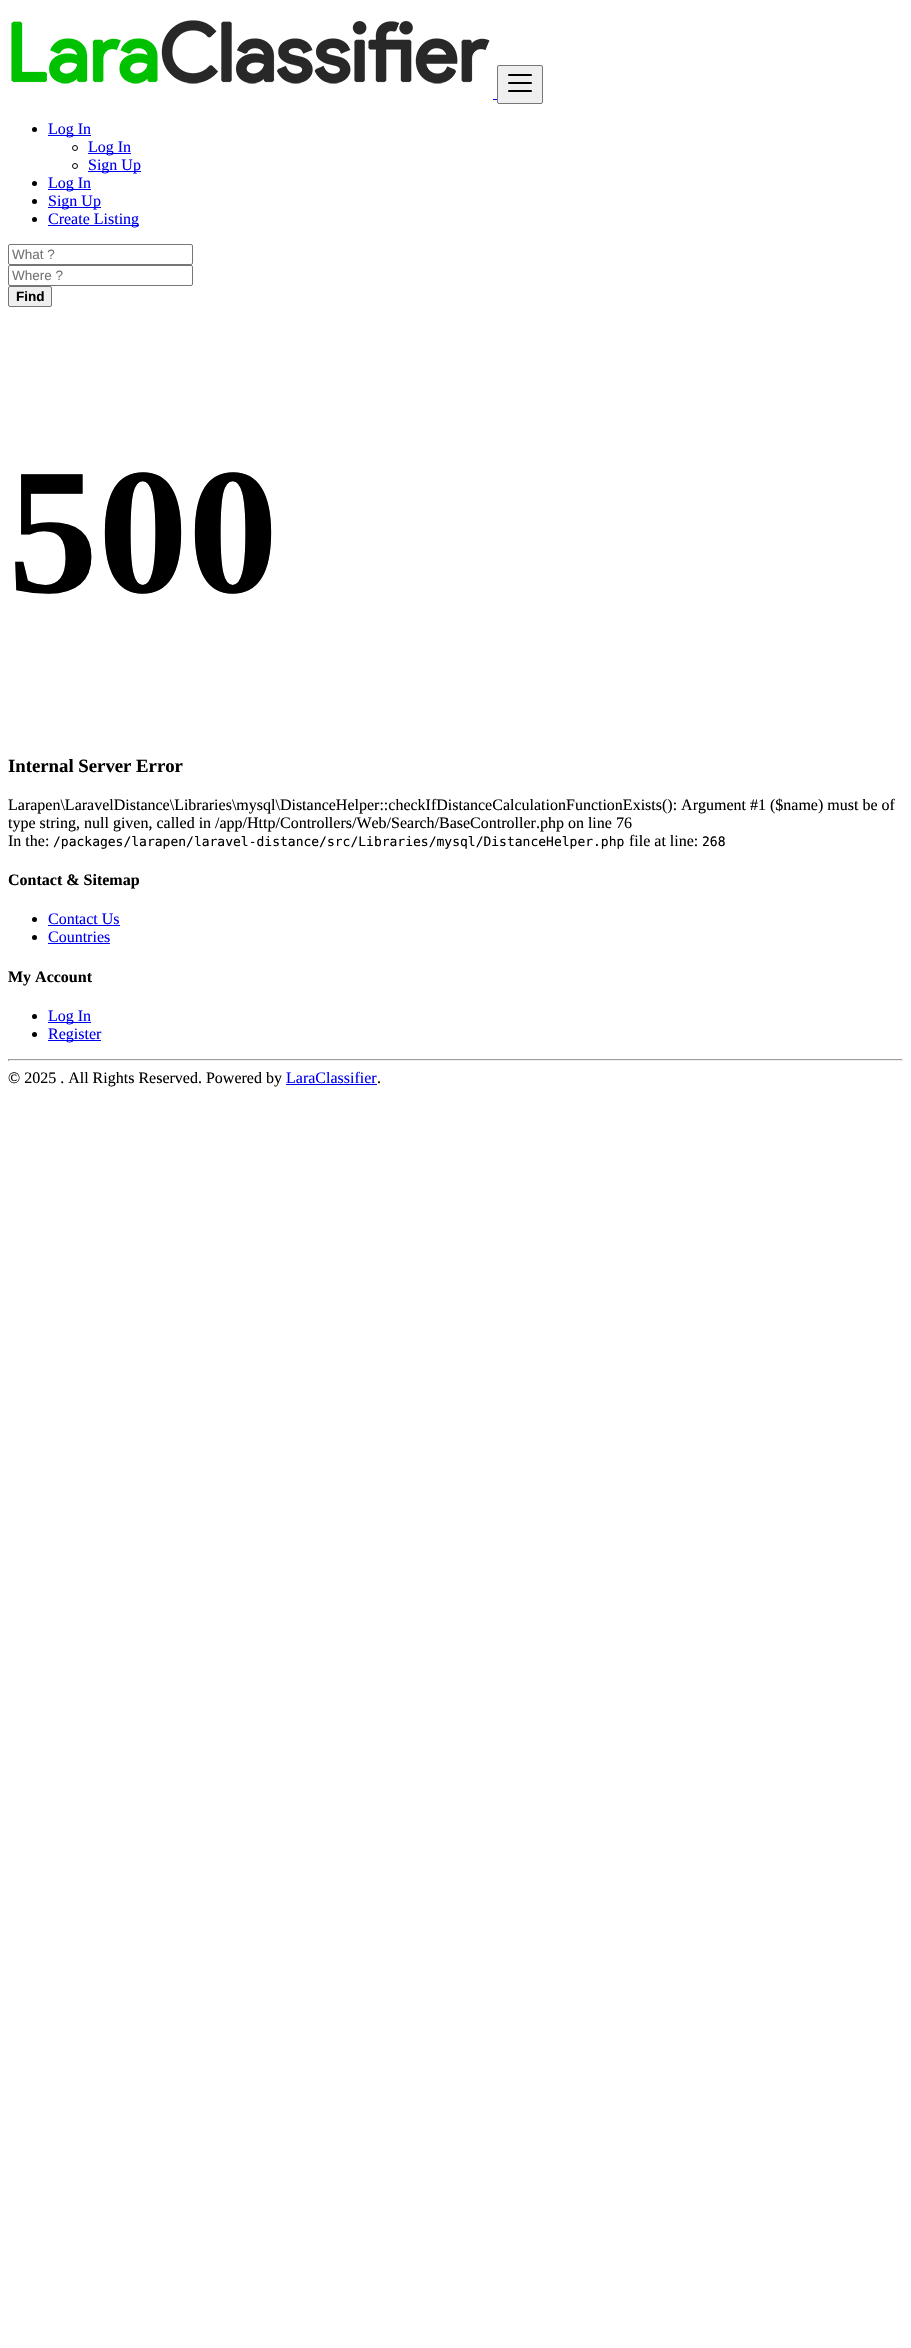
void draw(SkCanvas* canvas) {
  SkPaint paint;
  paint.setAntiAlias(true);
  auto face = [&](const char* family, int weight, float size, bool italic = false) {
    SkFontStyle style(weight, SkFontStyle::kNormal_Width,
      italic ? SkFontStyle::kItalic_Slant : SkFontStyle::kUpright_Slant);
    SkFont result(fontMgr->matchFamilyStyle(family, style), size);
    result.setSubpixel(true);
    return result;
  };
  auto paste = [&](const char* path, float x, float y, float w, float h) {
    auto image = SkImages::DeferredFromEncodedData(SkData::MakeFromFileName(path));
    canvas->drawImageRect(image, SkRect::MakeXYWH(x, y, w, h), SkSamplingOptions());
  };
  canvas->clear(0xffffffff);
  paste("img/1.png", 11, 20, 479, 64);
  paint.setColor(0xff0000ee);
  canvas->drawRect(SkRect::MakeXYWH(493, 99, 4, 1), paint);
  paint.setColor(0xffefefef);
  canvas->drawRoundRect(SkRect::MakeXYWH(497.5f, 65.5f, 45, 38), 1.5f, 1.5f, paint);
  paint.setStroke(true);
  paint.setStrokeWidth(1);
  paint.setColor(0xff767676);
  canvas->drawRoundRect(SkRect::MakeXYWH(497.5f, 65.5f, 45, 38), 1.5f, 1.5f, paint);
  paste("img/2.png", 508, 74, 24, 18);
  paint.setStroke(false);
  paint.setColor(0xff000000);
  canvas->drawCircle(34.5f, 129.5f, 2.5f, paint);
  paint.setColor(0xff0000ee);
  canvas->drawRect(SkRect::MakeXYWH(48, 135, 43, 1), paint);
  paint.setStroke(true);
  paint.setColor(0xff000000);
  canvas->drawCircle(75, 148, 2.5f, paint);
  paint.setStroke(false);
  paint.setColor(0xff0000ee);
  canvas->drawRect(SkRect::MakeXYWH(88, 153, 43, 1), paint);
  paint.setStroke(true);
  paint.setColor(0xff000000);
  canvas->drawCircle(75, 166, 2.5f, paint);
  paint.setStroke(false);
  paint.setColor(0xff0000ee);
  canvas->drawRect(SkRect::MakeXYWH(88, 171, 53, 1), paint);
  paint.setColor(0xff000000);
  canvas->drawCircle(34.5f, 183.5f, 2.5f, paint);
  paint.setColor(0xff0000ee);
  canvas->drawRect(SkRect::MakeXYWH(48, 189, 43, 1), paint);
  paint.setColor(0xff000000);
  canvas->drawCircle(34.5f, 201.5f, 2.5f, paint);
  paint.setColor(0xff0000ee);
  canvas->drawRect(SkRect::MakeXYWH(48, 207, 53, 1), paint);
  paint.setColor(0xff000000);
  canvas->drawCircle(34.5f, 219.5f, 2.5f, paint);
  paint.setColor(0xff0000ee);
  canvas->drawRect(SkRect::MakeXYWH(48, 225, 91, 1), paint);
  paint.setStroke(true);
  paint.setColor(0xff767676);
  canvas->drawRoundRect(SkRect::MakeXYWH(8.5f, 244.5f, 184, 20), 1.5f, 1.5f, paint);
  canvas->drawRoundRect(SkRect::MakeXYWH(8.5f, 265.5f, 184, 20), 1.5f, 1.5f, paint);
  paint.setStroke(false);
  paint.setColor(0xffefefef);
  canvas->drawRoundRect(SkRect::MakeXYWH(8.5f, 286.5f, 43, 20), 1.5f, 1.5f, paint);
  paint.setStroke(true);
  paint.setColor(0xff767676);
  canvas->drawRoundRect(SkRect::MakeXYWH(8.5f, 286.5f, 43, 20), 1.5f, 1.5f, paint);
  paint.setStroke(false);
  paint.setColor(0xff000000);
  canvas->drawCircle(34.5f, 919.5f, 2.5f, paint);
  paint.setColor(0xff0000ee);
  canvas->drawRect(SkRect::MakeXYWH(48, 925, 72, 1), paint);
  paint.setColor(0xff000000);
  canvas->drawCircle(34.5f, 937.5f, 2.5f, paint);
  paint.setColor(0xff0000ee);
  canvas->drawRect(SkRect::MakeXYWH(48, 943, 62, 1), paint);
  paint.setColor(0xff000000);
  canvas->drawCircle(34.5f, 1016.5f, 2.5f, paint);
  paint.setColor(0xff0000ee);
  canvas->drawRect(SkRect::MakeXYWH(48, 1022, 43, 1), paint);
  paint.setColor(0xff000000);
  canvas->drawCircle(34.5f, 1034.5f, 2.5f, paint);
  {
    const struct { float x, y, w, h; SkColor color; } items[] = {
      {48, 1040, 53, 1, 0xff0000ee},
      {8, 1059, 895, 1, 0xff9f9f9f},
      {902, 1059, 1, 2, 0xffeeeeee},
      {8, 1060, 895, 1, 0xffeeeeee},
      {8, 1059, 1, 2, 0xff9f9f9f},
      {286, 1084, 91, 1, 0xff0000ee},
    };
    for (auto [x, y, w, h, color] : items) {
      paint.setColor(color);
      canvas->drawRect(SkRect::MakeXYWH(x, y, w, h), paint);
    }
  }
  auto f0 = face("Liberation Serif", 400, 16);
  {
    const struct { const char* s; float x, y; } items[] = {
      {"Log In", 48, 134},
      {"Log In", 88, 152},
      {"Sign Up", 88, 170},
      {"Log In", 48, 188},
      {"Sign Up", 48, 206},
      {"Create Listing", 48, 224},
    };
    for (auto [s, x, y] : items) {
      canvas->drawString(s, x, y, f0, paint);
    }
  }
  auto f1 = face("Liberation Sans", 400, 13.5f);
  paint.setColor(0xff757575);
  canvas->drawString("What ?", 12, 259, f1, paint);
  canvas->drawString("Where ?", 12, 280, f1, paint);
  auto f2 = face("Liberation Sans", 700, 13.5f);
  paint.setColor(0xff000000);
  canvas->drawString("Find", 16, 301, f2, paint);
  auto f3 = face("Liberation Serif", 700, 180);
  canvas->drawString("500", 8, 592, f3, paint);
  auto f4 = face("Liberation Serif", 700, 18.75f);
  canvas->drawString("Internal Server Error", 8, 772, f4, paint);
  {
    const struct { const char* s; float x, y; } items[] = {
      {"Larapen\\LaravelDistance\\Libraries\\mysql\\DistanceHelper::checkIfDistanceCalculationFunctionExists(): Argument #1 ($name) must be of", 8, 810},
      {"type string, null given, called in /app/Http/Controllers/Web/Search/BaseController.php on line 76", 8, 828},
      {"In the:", 8, 846},
    };
    for (auto [s, x, y] : items) {
      canvas->drawString(s, x, y, f0, paint);
    }
  }
  auto f5 = face("DejaVu Sans Mono", 400, 13);
  canvas->drawString("/packages/larapen/laravel-distance/src/Libraries/mysql/DistanceHelper.php", 53, 846, f5, paint);
  canvas->drawString("file at line:", 629, 846, f0, paint);
  canvas->drawString("268", 702, 846, f5, paint);
  auto f6 = face("Liberation Serif", 700, 16);
  canvas->drawString("Contact & Sitemap", 8, 885, f6, paint);
  paint.setColor(0xff0000ee);
  canvas->drawString("Contact Us", 48, 924, f0, paint);
  canvas->drawString("Countries", 48, 942, f0, paint);
  paint.setColor(0xff000000);
  canvas->drawString("My Account", 8, 982, f6, paint);
  paint.setColor(0xff0000ee);
  canvas->drawString("Log In", 48, 1021, f0, paint);
  canvas->drawString("Register", 48, 1039, f0, paint);
  paint.setColor(0xff000000);
  canvas->drawString("© 2025 . All Rights Reserved. Powered by", 8, 1083, f0, paint);
  paint.setColor(0xff0000ee);
  canvas->drawString("LaraClassifier", 286, 1083, f0, paint);
  paint.setColor(0xff000000);
  canvas->drawString(".", 377, 1083, f0, paint);
}
